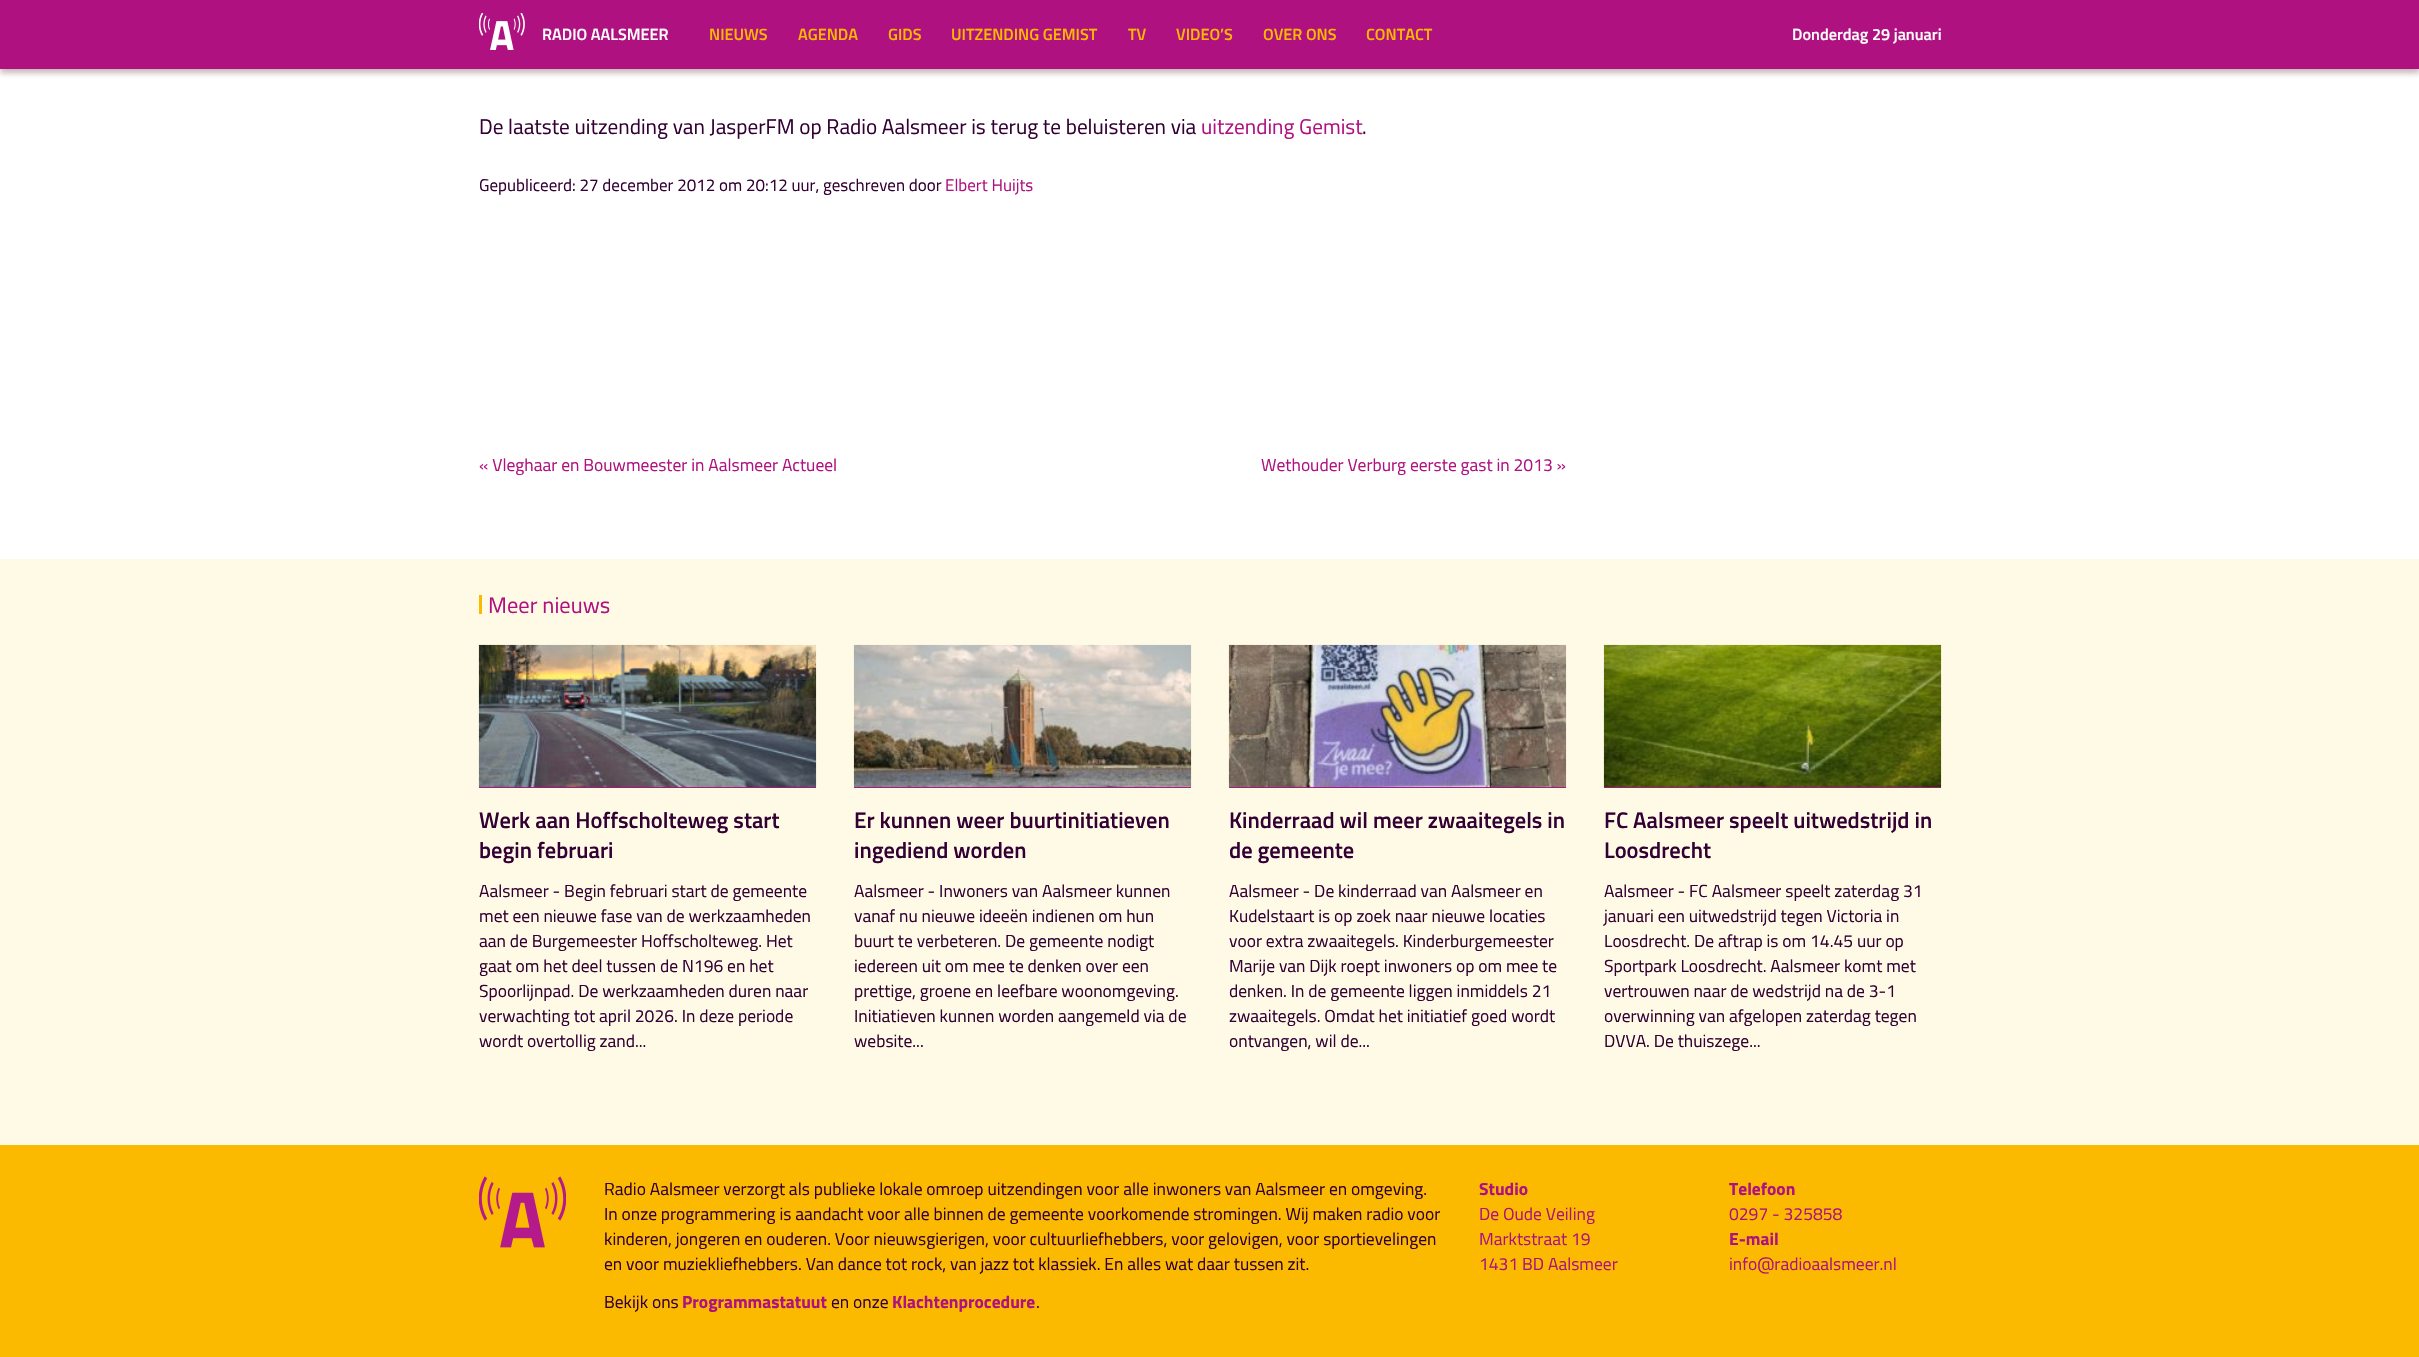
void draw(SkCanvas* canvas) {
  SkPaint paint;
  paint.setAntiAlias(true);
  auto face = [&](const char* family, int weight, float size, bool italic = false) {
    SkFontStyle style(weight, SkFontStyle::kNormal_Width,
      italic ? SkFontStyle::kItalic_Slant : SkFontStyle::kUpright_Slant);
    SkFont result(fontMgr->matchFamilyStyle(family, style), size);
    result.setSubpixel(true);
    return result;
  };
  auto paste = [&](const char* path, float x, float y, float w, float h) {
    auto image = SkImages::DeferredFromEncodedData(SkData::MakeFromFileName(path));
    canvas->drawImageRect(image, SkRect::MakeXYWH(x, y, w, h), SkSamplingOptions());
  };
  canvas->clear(0xffffffff);
  paint.setColor(0x4d430b0a);
  paint.setMaskFilter(SkMaskFilter::MakeBlur(kNormal_SkBlurStyle, 3));
  canvas->drawRect(SkRect::MakeXYWH(0, 4, 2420, 69), paint);
  paint.setMaskFilter(nullptr);
  paint.setColor(0xffaf1280);
  canvas->drawRect(SkRect::MakeXYWH(0, 0, 2419, 69), paint);
  paste("img/1.png", 479, 13, 46, 37);
  {
    const struct { float x, y, w, h; SkColor color; } items[] = {
      {0, 559, 2419, 586, 0xfffffae6},
      {479, 595, 3, 19, 0xfffbba00},
      {479, 787, 337, 1, 0xffaf1280},
    };
    for (auto [x, y, w, h, color] : items) {
      paint.setColor(color);
      canvas->drawRect(SkRect::MakeXYWH(x, y, w, h), paint);
    }
  }
  paste("img/2.png", 478, 644, 339, 144);
  canvas->drawRect(SkRect::MakeXYWH(854, 787, 337, 1), paint);
  paste("img/3.png", 853, 644, 339, 144);
  canvas->drawRect(SkRect::MakeXYWH(1229, 787, 337, 1), paint);
  paste("img/4.png", 1228, 644, 339, 144);
  canvas->drawRect(SkRect::MakeXYWH(1604, 787, 337, 1), paint);
  paste("img/5.png", 1603, 644, 339, 144);
  paint.setColor(0xfffbba00);
  canvas->drawRect(SkRect::MakeXYWH(0, 1145, 2419, 212), paint);
  paste("img/6.png", 479, 1176, 87, 72);
  auto f0 = face("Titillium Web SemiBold", 600, 16.25f);
  paint.setColor(0xffffffff);
  canvas->drawString("RADIO AALSMEER", 542, 40, f0, paint);
  paint.setColor(0xfffbba00);
  {
    const struct { const char* s; float x, y; } items[] = {
      {"NIEUWS", 709, 40},
      {"AGENDA", 798, 40},
      {"GIDS", 888, 40},
      {"UITZENDING GEMIST", 951, 40},
      {"TV", 1128, 40},
      {"VIDEO’S", 1176, 40},
      {"OVER ONS", 1263, 40},
      {"CONTACT", 1366, 40},
    };
    for (auto [s, x, y] : items) {
      canvas->drawString(s, x, y, f0, paint);
    }
  }
  paint.setColor(0xffffffff);
  canvas->drawString("Donderdag 29 januari", 1792, 40, f0, paint);
  auto f1 = face("Titillium Web", 400, 21.25f);
  paint.setColor(0xff330033);
  canvas->drawString("De laatste uitzending van JasperFM op Radio Aalsmeer is terug te beluisteren via", 479, 134, f1, paint);
  paint.setColor(0xffaf1280);
  canvas->drawString("uitzending Gemist", 1201, 134, f1, paint);
  paint.setColor(0xff330033);
  canvas->drawString(".", 1362, 134, f1, paint);
  auto f2 = face("Titillium Web", 400, 17);
  canvas->drawString("Gepubliceerd: 27 december 2012 om 20:12 uur, geschreven door", 479, 191, f2, paint);
  paint.setColor(0xffaf1280);
  canvas->drawString("Elbert Huijts", 945, 191, f2, paint);
  auto f3 = face("Titillium Web", 400, 17.5f);
  canvas->drawString("« Vleghaar en Bouwmeester in Aalsmeer Actueel", 479, 471, f3, paint);
  canvas->drawString("Wethouder Verburg eerste gast in 2013 »", 1261, 471, f3, paint);
  auto f4 = face("Titillium Web", 400, 22.5f);
  canvas->drawString("Meer nieuws", 488, 613, f4, paint);
  auto f5 = face("Titillium Web SemiBold", 600, 22.5f);
  paint.setColor(0xff330033);
  canvas->drawString("Werk aan Hoffscholteweg start", 479, 828, f5, paint);
  canvas->drawString("begin februari", 479, 858, f5, paint);
  {
    const struct { const char* s; float x, y; } items[] = {
      {"Aalsmeer - Begin februari start de gemeente", 479, 897},
      {"met een nieuwe fase van de werkzaamheden", 479, 922},
      {"aan de Burgemeester Hoffscholteweg. Het", 479, 947},
      {"gaat om het deel tussen de N196 en het", 479, 972},
      {"Spoorlijnpad. De werkzaamheden duren naar", 479, 997},
      {"verwachting tot april 2026. In deze periode", 479, 1022},
      {"wordt overtollig zand...", 479, 1047},
    };
    for (auto [s, x, y] : items) {
      canvas->drawString(s, x, y, f3, paint);
    }
  }
  canvas->drawString("Er kunnen weer buurtinitiatieven", 854, 828, f5, paint);
  canvas->drawString("ingediend worden", 854, 858, f5, paint);
  {
    const struct { const char* s; float x, y; } items[] = {
      {"Aalsmeer - Inwoners van Aalsmeer kunnen", 854, 897},
      {"vanaf nu nieuwe ideeën indienen om hun", 854, 922},
      {"buurt te verbeteren. De gemeente nodigt", 854, 947},
      {"iedereen uit om mee te denken over een", 854, 972},
      {"prettige, groene en leefbare woonomgeving.", 854, 997},
      {"Initiatieven kunnen worden aangemeld via de", 854, 1022},
      {"website...", 854, 1047},
    };
    for (auto [s, x, y] : items) {
      canvas->drawString(s, x, y, f3, paint);
    }
  }
  canvas->drawString("Kinderraad wil meer zwaaitegels in", 1229, 828, f5, paint);
  canvas->drawString("de gemeente", 1229, 858, f5, paint);
  {
    const struct { const char* s; float x, y; } items[] = {
      {"Aalsmeer - De kinderraad van Aalsmeer en", 1229, 897},
      {"Kudelstaart is op zoek naar nieuwe locaties", 1229, 922},
      {"voor extra zwaaitegels. Kinderburgemeester", 1229, 947},
      {"Marije van Dijk roept inwoners op om mee te", 1229, 972},
      {"denken. In de gemeente liggen inmiddels 21", 1229, 997},
      {"zwaaitegels. Omdat het initiatief goed wordt", 1229, 1022},
      {"ontvangen, wil de...", 1229, 1047},
    };
    for (auto [s, x, y] : items) {
      canvas->drawString(s, x, y, f3, paint);
    }
  }
  canvas->drawString("FC Aalsmeer speelt uitwedstrijd in", 1604, 828, f5, paint);
  canvas->drawString("Loosdrecht", 1604, 858, f5, paint);
  {
    const struct { const char* s; float x, y; } items[] = {
      {"Aalsmeer - FC Aalsmeer speelt zaterdag 31", 1604, 897},
      {"januari een uitwedstrijd tegen Victoria in", 1604, 922},
      {"Loosdrecht. De aftrap is om 14.45 uur op", 1604, 947},
      {"Sportpark Loosdrecht. Aalsmeer komt met", 1604, 972},
      {"vertrouwen naar de wedstrijd na de 3-1", 1604, 997},
      {"overwinning van afgelopen zaterdag tegen", 1604, 1022},
      {"DVVA. De thuiszege...", 1604, 1047},
      {"Radio Aalsmeer verzorgt als publieke lokale omroep uitzendingen voor alle inwoners van Aalsmeer en omgeving.", 604, 1195},
      {"In onze programmering is aandacht voor alle binnen de gemeente voorkomende stromingen. Wij maken radio voor", 604, 1220},
      {"kinderen, jongeren en ouderen. Voor nieuwsgierigen, voor cultuurliefhebbers, voor gelovigen, voor sportievelingen", 604, 1245},
      {"en voor muziekliefhebbers. Van dance tot rock, van jazz tot klassiek. En alles wat daar tussen zit.", 604, 1270},
      {"Bekijk ons", 604, 1308},
    };
    for (auto [s, x, y] : items) {
      canvas->drawString(s, x, y, f3, paint);
    }
  }
  auto f6 = face("Titillium Web", 700, 17.5f);
  paint.setColor(0xffaf1280);
  canvas->drawString("Programmastatuut", 682, 1308, f6, paint);
  paint.setColor(0xff330033);
  canvas->drawString("en onze", 831, 1308, f3, paint);
  paint.setColor(0xffaf1280);
  canvas->drawString("Klachtenprocedure", 892, 1308, f6, paint);
  paint.setColor(0xff330033);
  canvas->drawString(".", 1036, 1308, f3, paint);
  paint.setColor(0xffaf1280);
  canvas->drawString("Studio", 1479, 1195, f6, paint);
  {
    const struct { const char* s; float x, y; } items[] = {
      {"De Oude Veiling", 1479, 1220},
      {"Marktstraat 19", 1479, 1245},
      {"1431 BD Aalsmeer", 1479, 1270},
    };
    for (auto [s, x, y] : items) {
      canvas->drawString(s, x, y, f3, paint);
    }
  }
  canvas->drawString("Telefoon", 1729, 1195, f6, paint);
  canvas->drawString("0297 - 325858", 1729, 1220, f3, paint);
  canvas->drawString("E-mail", 1729, 1245, f6, paint);
  canvas->drawString("info@radioaalsmeer.nl", 1729, 1270, f3, paint);
}
